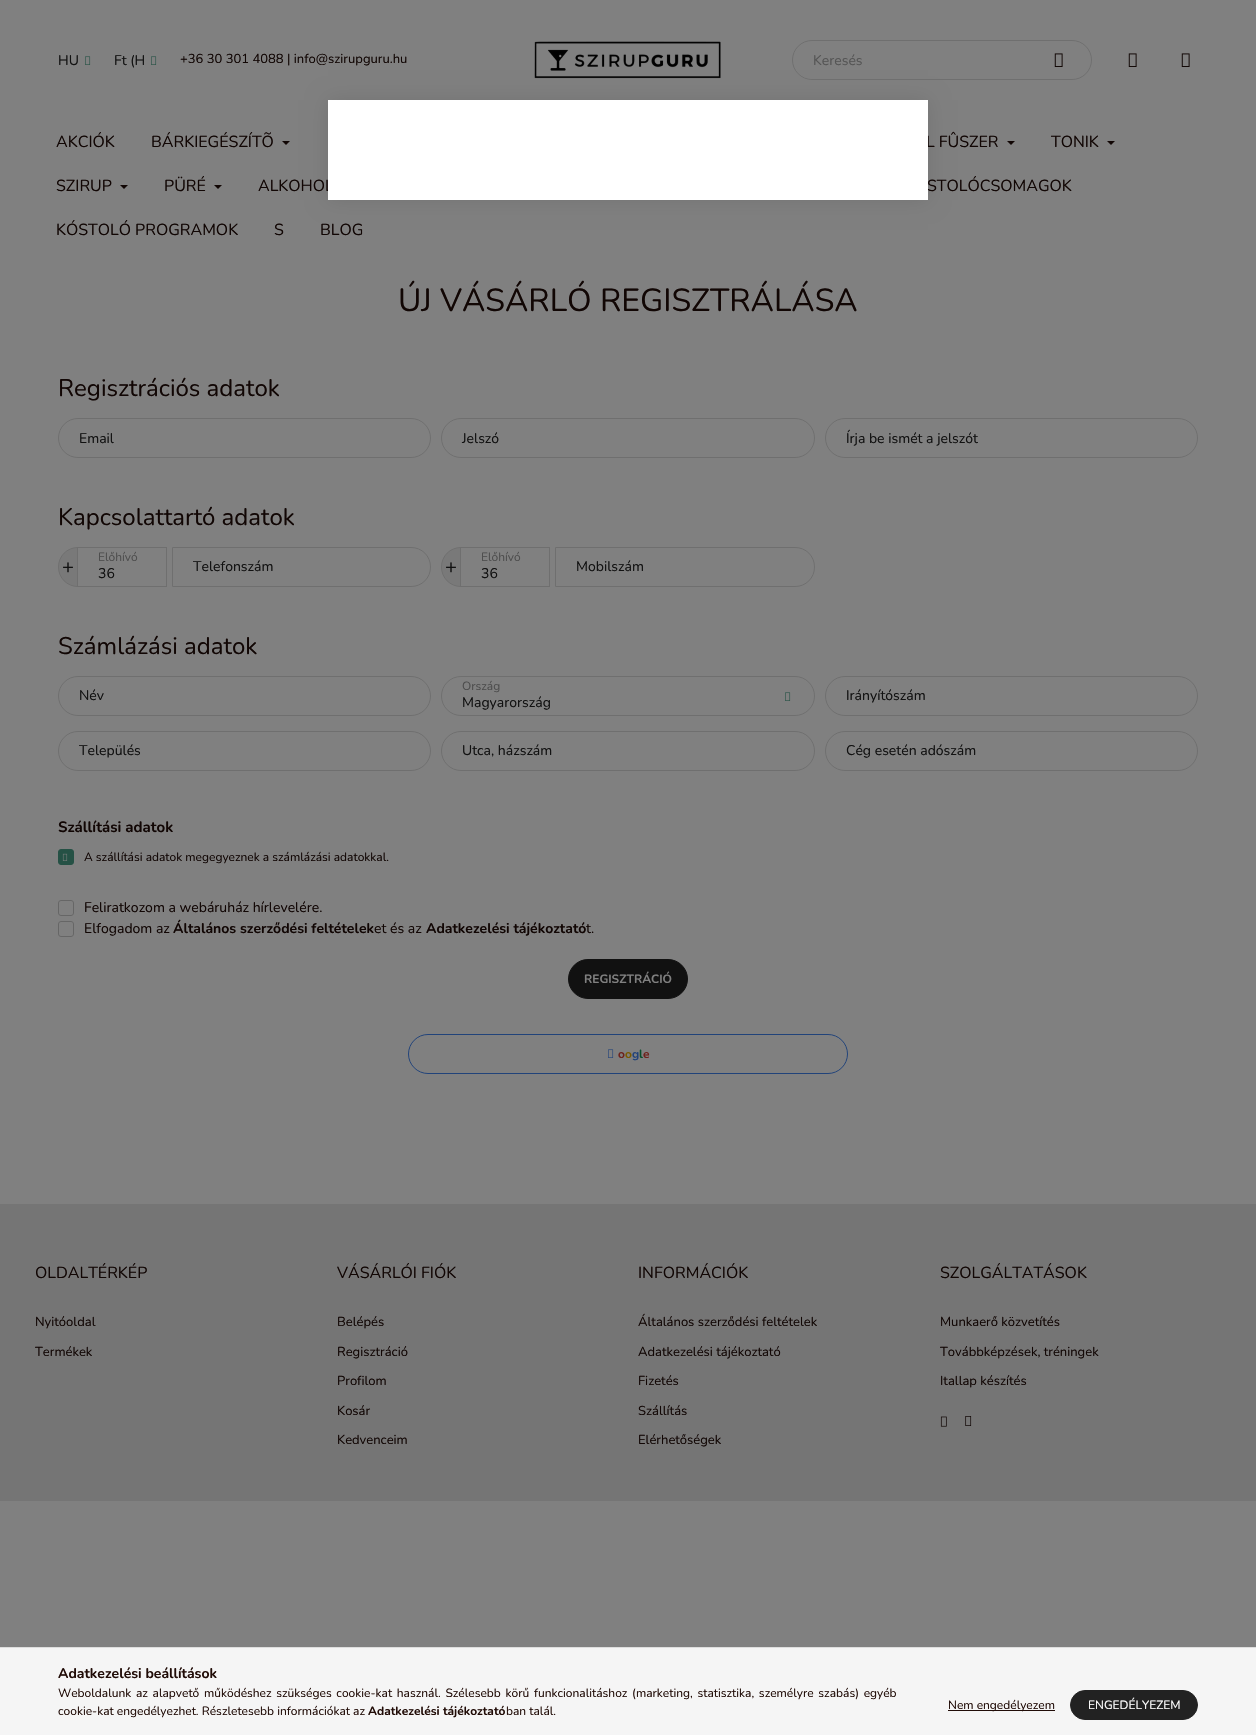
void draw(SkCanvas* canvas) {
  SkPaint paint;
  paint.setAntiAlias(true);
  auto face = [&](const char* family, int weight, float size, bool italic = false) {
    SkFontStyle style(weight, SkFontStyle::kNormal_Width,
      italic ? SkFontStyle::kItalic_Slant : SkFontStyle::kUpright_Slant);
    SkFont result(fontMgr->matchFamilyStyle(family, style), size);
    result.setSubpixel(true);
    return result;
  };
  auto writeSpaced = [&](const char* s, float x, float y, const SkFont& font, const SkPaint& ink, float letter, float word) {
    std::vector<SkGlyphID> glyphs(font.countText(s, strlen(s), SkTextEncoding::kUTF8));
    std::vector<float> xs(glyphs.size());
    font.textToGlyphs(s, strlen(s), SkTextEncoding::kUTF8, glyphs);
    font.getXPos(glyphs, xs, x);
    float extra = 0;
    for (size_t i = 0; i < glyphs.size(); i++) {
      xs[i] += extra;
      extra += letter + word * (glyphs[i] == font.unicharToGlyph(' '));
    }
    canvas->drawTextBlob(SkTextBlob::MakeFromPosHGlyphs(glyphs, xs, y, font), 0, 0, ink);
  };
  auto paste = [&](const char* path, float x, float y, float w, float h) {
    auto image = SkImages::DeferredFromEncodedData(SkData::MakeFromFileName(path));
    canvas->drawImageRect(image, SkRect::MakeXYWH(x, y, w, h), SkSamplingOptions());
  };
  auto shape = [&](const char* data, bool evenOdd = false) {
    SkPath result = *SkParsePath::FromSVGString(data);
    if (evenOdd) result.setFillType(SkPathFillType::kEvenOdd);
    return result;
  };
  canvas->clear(0xff808080);
  paste("img/1.png", 85, 56, 6, 9);
  paste("img/1.png", 151, 56, 6, 9);
  paste("img/2.png", 534, 41, 187, 38);
  paint.setStroke(true);
  paint.setStrokeWidth(1);
  paint.setColor(0xff6f6f6f);
  canvas->drawRoundRect(SkRect::MakeXYWH(792.5f, 40.5f, 299, 39), 19.5f, 19.5f, paint);
  paste("img/3.png", 1054, 53, 9, 14);
  paste("img/3.png", 1128, 53, 9, 14);
  paste("img/3.png", 1181, 53, 9, 14);
  paint.setStroke(false);
  paint.setColor(0xff110604);
  canvas->drawPath(shape("M282 141H290L286 145Z"), paint);
  canvas->drawPath(shape("M1007 141H1015L1011 145Z"), paint);
  canvas->drawPath(shape("M1107 141H1115L1111 145Z"), paint);
  canvas->drawPath(shape("M120 185H128L124 189Z"), paint);
  canvas->drawPath(shape("M214 185H222L218 189Z"), paint);
  paint.setStroke(true);
  paint.setColor(0xff6f6f6f);
  canvas->drawRoundRect(SkRect::MakeXYWH(58.5f, 418.5f, 372, 39), 19.5f, 19.5f, paint);
  canvas->drawRoundRect(SkRect::MakeXYWH(441.5f, 418.5f, 373, 39), 19.5f, 19.5f, paint);
  canvas->drawRoundRect(SkRect::MakeXYWH(825.5f, 418.5f, 372, 39), 19.5f, 19.5f, paint);
  canvas->drawPath(shape("M172.5 547.5H411C422 547.5 430.5 556 430.5 567C430.5 578 422 586.5 411 586.5H172.5Z"), paint);
  paint.setStroke(false);
  paint.setColor(0xff797979);
  canvas->drawPath(shape("M78 547.5H77.5V586.5H78C67 586.5 58.5 578 58.5 567C58.5 556 67 547.5 78 547.5Z"), paint);
  paint.setStroke(true);
  paint.setColor(0xff6f6f6f);
  canvas->drawPath(shape("M78 547.5H77.5V586.5H78C67 586.5 58.5 578 58.5 567C58.5 556 67 547.5 78 547.5Z"), paint);
  canvas->drawRect(SkRect::MakeXYWH(77.5f, 547.5f, 89, 39), paint);
  canvas->drawPath(shape("M555.5 547.5H795C806 547.5 814.5 556 814.5 567C814.5 578 806 586.5 795 586.5H555.5Z"), paint);
  paint.setStroke(false);
  paint.setColor(0xff797979);
  canvas->drawPath(shape("M461 547.5H460.5V586.5H461C450 586.5 441.5 578 441.5 567C441.5 556 450 547.5 461 547.5Z"), paint);
  paint.setStroke(true);
  paint.setColor(0xff6f6f6f);
  canvas->drawPath(shape("M461 547.5H460.5V586.5H461C450 586.5 441.5 578 441.5 567C441.5 556 450 547.5 461 547.5Z"), paint);
  canvas->drawRect(SkRect::MakeXYWH(460.5f, 547.5f, 89, 39), paint);
  canvas->drawRoundRect(SkRect::MakeXYWH(58.5f, 676.5f, 372, 39), 19.5f, 19.5f, paint);
  canvas->drawRoundRect(SkRect::MakeXYWH(441.5f, 676.5f, 373, 39), 19.5f, 19.5f, paint);
  paste("img/1.png", 785, 692, 6, 9);
  canvas->drawRoundRect(SkRect::MakeXYWH(825.5f, 676.5f, 372, 39), 19.5f, 19.5f, paint);
  canvas->drawRoundRect(SkRect::MakeXYWH(58.5f, 731.5f, 372, 39), 19.5f, 19.5f, paint);
  canvas->drawRoundRect(SkRect::MakeXYWH(441.5f, 731.5f, 373, 39), 19.5f, 19.5f, paint);
  canvas->drawRoundRect(SkRect::MakeXYWH(825.5f, 731.5f, 372, 39), 19.5f, 19.5f, paint);
  paint.setStroke(false);
  paint.setColor(0xff255145);
  canvas->drawRoundRect(SkRect::MakeXYWH(58.5f, 849.5f, 15, 15), 2.5f, 2.5f, paint);
  paint.setStroke(true);
  canvas->drawRoundRect(SkRect::MakeXYWH(58.5f, 849.5f, 15, 15), 2.5f, 2.5f, paint);
  paste("img/4.png", 62, 853, 6, 8);
  paint.setColor(0xff666666);
  canvas->drawRoundRect(SkRect::MakeXYWH(58.5f, 900.5f, 15, 15), 2.5f, 2.5f, paint);
  canvas->drawRoundRect(SkRect::MakeXYWH(58.5f, 921.5f, 15, 15), 2.5f, 2.5f, paint);
  paint.setStroke(false);
  paint.setColor(0xff111111);
  canvas->drawRoundRect(SkRect::MakeXYWH(568.5f, 959.5f, 119, 39), 19.5f, 19.5f, paint);
  paint.setStroke(true);
  canvas->drawRoundRect(SkRect::MakeXYWH(568.5f, 959.5f, 119, 39), 19.5f, 19.5f, paint);
  paint.setColor(0xff21437a);
  canvas->drawRoundRect(SkRect::MakeXYWH(408.5f, 1034.5f, 439, 39), 19.5f, 19.5f, paint);
  paste("img/5.png", 608, 1049, 6, 9);
  paint.setStroke(false);
  paint.setColor(0xff757575);
  canvas->drawRect(SkRect::MakeXYWH(0, 1204, 1256, 297), paint);
  paste("img/6.png", 940, 1416, 7, 11);
  paste("img/7.png", 965, 1416, 7, 10);
  paint.setColor(0x1a000000);
  paint.setMaskFilter(SkMaskFilter::MakeBlur(kNormal_SkBlurStyle, 10));
  canvas->drawRect(SkRect::MakeXYWH(328, 100, 600, 100), paint);
  paint.setMaskFilter(nullptr);
  {
    const struct { float x, y, w, h; SkColor color; } items[] = {
      {0, 1648, 1256, 87, 0xfff5f5f5},
      {0, 1647, 1256, 1, 0xffdddddd},
      {948, 1710, 107, 1, 0xff210c07},
    };
    for (auto [x, y, w, h, color] : items) {
      paint.setColor(color);
      canvas->drawRect(SkRect::MakeXYWH(x, y, w, h), paint);
    }
  }
  paint.setColor(0xff222222);
  canvas->drawRoundRect(SkRect::MakeXYWH(1070.5f, 1690.5f, 127, 29), 14.5f, 14.5f, paint);
  paint.setStroke(true);
  canvas->drawRoundRect(SkRect::MakeXYWH(1070.5f, 1690.5f, 127, 29), 14.5f, 14.5f, paint);
  auto f0 = face("Nunito", 400, 14);
  paint.setStroke(false);
  paint.setColor(0xff111111);
  canvas->drawString("HU", 58, 65, f0, paint);
  canvas->drawString("Ft (H", 114, 65, f0, paint);
  auto f1 = face("Nunito", 400, 13);
  paint.setColor(0xff110604);
  canvas->drawString("+36 30 301 4088 | info@szirupguru.hu", 180, 63, f1, paint);
  paint.setColor(0xff555555);
  canvas->drawString("Keresés", 813, 65, f0, paint);
  auto f2 = face("Nunito", 400, 16);
  paint.setColor(0xff110604);
  {
    const struct { const char* s; float x, y; } items[] = {
      {"AKCIÓK", 56, 147},
      {"BÁRKIEGÉSZÍTÕ", 151, 147},
      {"L FÛSZER", 926, 147},
      {"TONIK", 1051, 147},
      {"SZIRUP", 56, 191},
      {"PÜRÉ", 164, 191},
      {"ALKOHOL", 258, 191},
      {"STOLÓCSOMAGOK", 927, 191},
      {"KÓSTOLÓ PROGRAMOK", 56, 235},
      {"S", 274, 235},
      {"BLOG", 320, 235},
    };
    for (auto [s, x, y] : items) {
      canvas->drawString(s, x, y, f2, paint);
    }
  }
  auto f3 = face("Nunito", 400, 32);
  canvas->drawString("ÚJ VÁSÁRLÓ REGISZTRÁLÁSA", 398, 311, f3, paint);
  auto f4 = face("Nunito", 400, 24);
  canvas->drawString("Regisztrációs adatok", 58, 396, f4, paint);
  paint.setColor(0xff111111);
  {
    const struct { const char* s; float x, y; } items[] = {
      {"Email", 79, 443},
      {"Jelszó", 462, 443},
      {"Írja be ismét a jelszót", 846, 443},
    };
    for (auto [s, x, y] : items) {
      canvas->drawString(s, x, y, f0, paint);
    }
  }
  paint.setColor(0xff110604);
  canvas->drawString("Kapcsolattartó adatok", 58, 525, f4, paint);
  auto f5 = face("Nunito", 400, 12);
  paint.setColor(0xff4d4d4d);
  canvas->drawString("Előhívó", 98, 561, f5, paint);
  auto f6 = face("Nunito", 400, 20);
  paint.setColor(0xff111111);
  canvas->drawString("+", 62, 573, f6, paint);
  canvas->drawString("36", 98, 578, f0, paint);
  canvas->drawString("Telefonszám", 193, 571, f0, paint);
  paint.setColor(0xff4d4d4d);
  canvas->drawString("Előhívó", 481, 561, f5, paint);
  paint.setColor(0xff111111);
  canvas->drawString("+", 445, 573, f6, paint);
  canvas->drawString("36", 481, 578, f0, paint);
  canvas->drawString("Mobilszám", 576, 571, f0, paint);
  paint.setColor(0xff110604);
  canvas->drawString("Számlázási adatok", 58, 654, f4, paint);
  paint.setColor(0xff111111);
  canvas->drawString("Név", 79, 700, f0, paint);
  paint.setColor(0xff4d4d4d);
  canvas->drawString("Ország", 462, 690, f5, paint);
  paint.setColor(0xff111111);
  {
    const struct { const char* s; float x, y; } items[] = {
      {"Magyarország", 462, 707},
      {"Irányítószám", 846, 700},
      {"Település", 79, 755},
      {"Utca, házszám", 462, 755},
      {"Cég esetén adószám", 846, 755},
    };
    for (auto [s, x, y] : items) {
      canvas->drawString(s, x, y, f0, paint);
    }
  }
  auto f7 = face("Nunito", 700, 15);
  paint.setColor(0xff110604);
  canvas->drawString("Szállítási adatok", 58, 832, f7, paint);
  canvas->drawString("A szállítási adatok megegyeznek a számlázási adatokkal.", 84, 861, f5, paint);
  canvas->drawString("Feliratkozom a webáruház hírlevelére.", 84, 912, f0, paint);
  canvas->drawString("Elfogadom az", 84, 933, f0, paint);
  auto f8 = face("Nunito", 700, 14);
  canvas->drawString("Általános szerződési feltételek", 173, 933, f8, paint);
  canvas->drawString("et és az", 374, 933, f0, paint);
  canvas->drawString("Adatkezelési tájékoztató", 426, 933, f8, paint);
  canvas->drawString("t.", 586, 933, f0, paint);
  auto f9 = face("Nunito", 700, 12);
  paint.setColor(0xff808080);
  canvas->drawString("REGISZTRÁCIÓ", 584, 983, f9, paint);
  paint.setColor(0xff6e221c);
  canvas->drawString("o", 618, 1058, f9, paint);
  paint.setColor(0xff7a5a00);
  canvas->drawString("o", 625, 1058, f9, paint);
  paint.setColor(0xff21437a);
  canvas->drawString("g", 632, 1058, f9, paint);
  paint.setColor(0xff084f2c);
  canvas->drawString("l", 639, 1058, f9, paint);
  paint.setColor(0xff6e221c);
  canvas->drawString("e", 643, 1058, f9, paint);
  paint.setColor(0xff110604);
  canvas->drawString("OLDALTÉRKÉP", 35, 1278, f2, paint);
  canvas->drawString("Nyitóoldal", 35, 1326, f1, paint);
  canvas->drawString("Termékek", 35, 1356, f1, paint);
  canvas->drawString("VÁSÁRLÓI FIÓK", 337, 1278, f2, paint);
  {
    const struct { const char* s; float x, y; } items[] = {
      {"Belépés", 337, 1326},
      {"Regisztráció", 337, 1356},
      {"Profilom", 337, 1385},
      {"Kosár", 337, 1415},
      {"Kedvenceim", 337, 1444},
    };
    for (auto [s, x, y] : items) {
      canvas->drawString(s, x, y, f1, paint);
    }
  }
  canvas->drawString("INFORMÁCIÓK", 638, 1278, f2, paint);
  {
    const struct { const char* s; float x, y; } items[] = {
      {"Általános szerződési feltételek", 638, 1326},
      {"Adatkezelési tájékoztató", 638, 1356},
      {"Fizetés", 638, 1385},
      {"Szállítás", 638, 1415},
      {"Elérhetőségek", 638, 1444},
    };
    for (auto [s, x, y] : items) {
      canvas->drawString(s, x, y, f1, paint);
    }
  }
  canvas->drawString("SZOLGÁLTATÁSOK", 940, 1278, f2, paint);
  {
    const struct { const char* s; float x, y; } items[] = {
      {"Munkaerő közvetítés", 940, 1326},
      {"Továbbképzések, tréningek", 940, 1356},
      {"Itallap készítés", 940, 1385},
    };
    for (auto [s, x, y] : items) {
      canvas->drawString(s, x, y, f1, paint);
    }
  }
  paint.setColor(0xffffffff);
  canvas->drawRect(SkRect::MakeXYWH(328, 100, 600, 100), paint);
  paint.setColor(0xff210c07);
  canvas->drawString("Adatkezelési beállítások", 58, 1678, f8, paint);
  writeSpaced("Weboldalunk az alapvető működéshez szükséges cookie-kat használ. Szélesebb körű funkcionalitáshoz (marketing, statisztika, személyre szabás) egyéb", 58, 1697, f5, paint, 0, 1.6f);
  canvas->drawString("cookie-kat engedélyezhet. Részletesebb információkat az", 58, 1715, f5, paint);
  canvas->drawString("Adatkezelési tájékoztató", 368, 1715, f9, paint);
  canvas->drawString("ban talál.", 506, 1715, f5, paint);
  canvas->drawString("Nem engedélyezem", 948, 1709, f5, paint);
  paint.setColor(0xffffffff);
  canvas->drawString("ENGEDÉLYEZEM", 1088, 1709, f5, paint);
}
